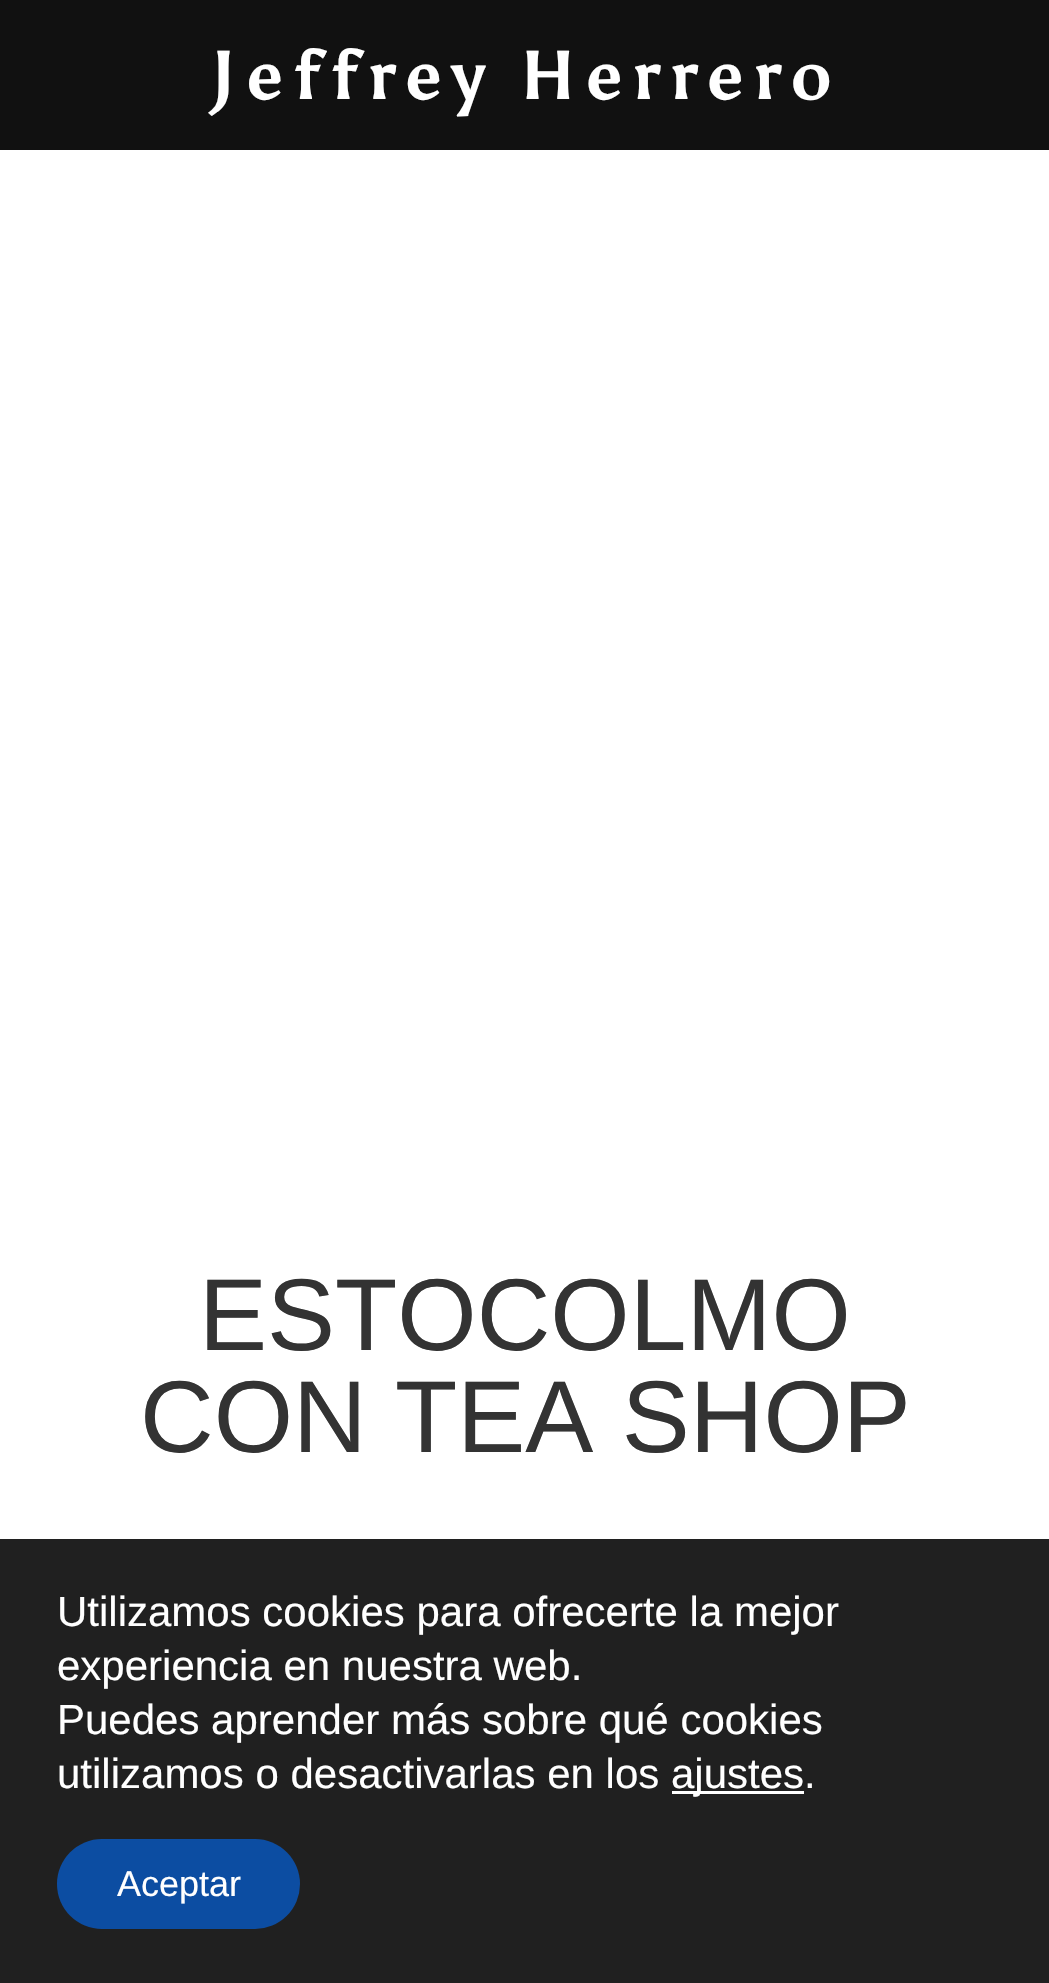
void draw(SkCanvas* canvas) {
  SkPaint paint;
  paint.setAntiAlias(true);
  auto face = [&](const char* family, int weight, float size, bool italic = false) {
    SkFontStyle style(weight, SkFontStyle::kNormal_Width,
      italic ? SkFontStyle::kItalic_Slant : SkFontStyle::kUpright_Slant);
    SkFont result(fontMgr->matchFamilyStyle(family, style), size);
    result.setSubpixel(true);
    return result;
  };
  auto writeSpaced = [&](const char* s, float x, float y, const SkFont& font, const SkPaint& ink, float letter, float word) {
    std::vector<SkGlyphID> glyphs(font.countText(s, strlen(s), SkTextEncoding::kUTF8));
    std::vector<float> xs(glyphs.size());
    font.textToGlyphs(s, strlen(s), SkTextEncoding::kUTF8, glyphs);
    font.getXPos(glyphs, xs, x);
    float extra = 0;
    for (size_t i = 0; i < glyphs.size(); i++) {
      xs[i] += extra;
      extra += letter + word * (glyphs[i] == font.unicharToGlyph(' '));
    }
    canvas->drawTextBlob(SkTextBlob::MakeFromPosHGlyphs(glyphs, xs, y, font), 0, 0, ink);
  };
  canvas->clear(0xffffffff);
  {
    const struct { float x, y, w, h; SkColor color; } items[] = {
      {0, 0, 1049, 150, 0xff111111},
      {0, 1539, 1049, 444, 0xff202020},
      {672, 1791, 132, 3, 0xffffffff},
    };
    for (auto [x, y, w, h, color] : items) {
      paint.setColor(color);
      canvas->drawRect(SkRect::MakeXYWH(x, y, w, h), paint);
    }
  }
  paint.setColor(0xff0c4da2);
  canvas->drawRoundRect(SkRect::MakeXYWH(57, 1839, 243, 90), 45, 45, paint);
  auto f0 = face("Asul", 700, 69);
  paint.setColor(0xffffffff);
  writeSpaced("Jeffrey Herrero", 209, 99, f0, paint, 9, 0);
  auto f1 = face("Liberation Sans", 400, 102);
  paint.setColor(0xff333333);
  canvas->drawString("ESTOCOLMO", 199, 1350, f1, paint);
  canvas->drawString("CON TEA SHOP", 140, 1452, f1, paint);
  auto f2 = face("Liberation Sans", 400, 42);
  paint.setColor(0xffffffff);
  {
    const struct { const char* s; float x, y; } items[] = {
      {"Utilizamos cookies para ofrecerte la mejor", 57, 1626},
      {"experiencia en nuestra web.", 57, 1680},
      {"Puedes aprender más sobre qué cookies", 57, 1734},
      {"utilizamos o desactivarlas en los", 57, 1788},
      {"ajustes.", 671, 1788},
    };
    for (auto [s, x, y] : items) {
      canvas->drawString(s, x, y, f2, paint);
    }
  }
  auto f3 = face("Liberation Sans", 400, 36);
  canvas->drawString("Aceptar", 117, 1896, f3, paint);
}
